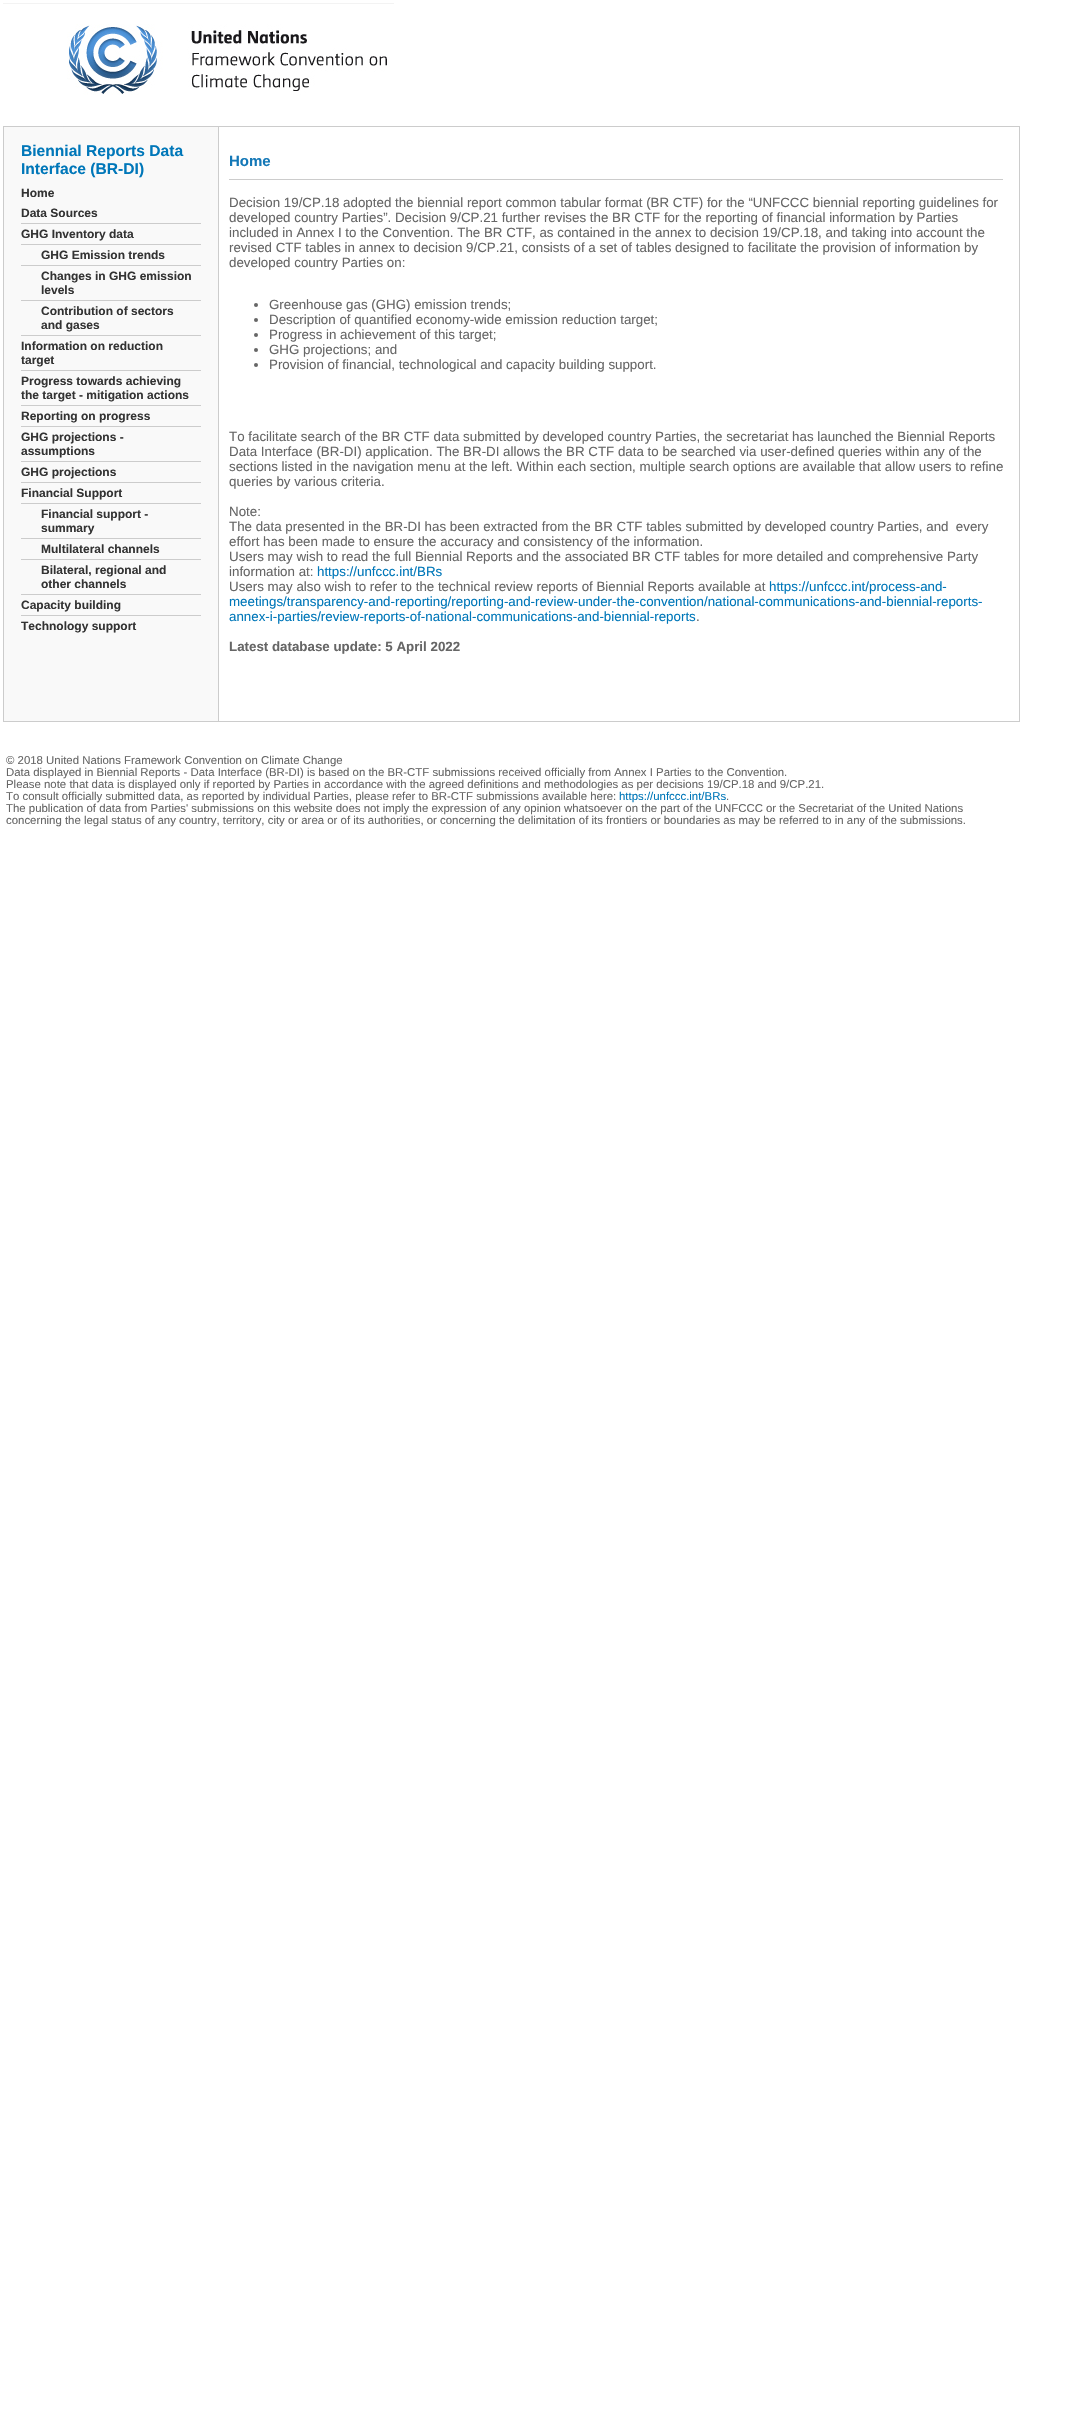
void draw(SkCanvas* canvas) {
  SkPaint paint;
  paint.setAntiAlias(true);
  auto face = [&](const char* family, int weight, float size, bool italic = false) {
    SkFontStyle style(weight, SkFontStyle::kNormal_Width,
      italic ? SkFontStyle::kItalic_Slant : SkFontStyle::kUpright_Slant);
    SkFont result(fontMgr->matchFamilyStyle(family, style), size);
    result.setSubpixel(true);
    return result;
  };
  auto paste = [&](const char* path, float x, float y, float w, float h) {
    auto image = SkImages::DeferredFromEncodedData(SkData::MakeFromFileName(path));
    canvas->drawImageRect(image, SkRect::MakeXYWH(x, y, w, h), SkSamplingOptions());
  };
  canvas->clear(0xffffffff);
  paste("img/1.png", 3, 3, 391, 92);
  paint.setStroke(true);
  paint.setStrokeWidth(1);
  paint.setColor(0xffcccccc);
  canvas->drawRect(SkRect::MakeXYWH(3.5f, 126.5f, 1016, 595), paint);
  paint.setStroke(false);
  {
    const struct { float x, y, w, h; SkColor color; } items[] = {
      {4, 127, 214, 594, 0xfff9f9f9},
      {218, 127, 1, 594, 0xffcccccc},
      {21, 223, 180, 1, 0xffcccccc},
      {21, 244, 180, 1, 0xffcccccc},
      {21, 265, 180, 1, 0xffcccccc},
      {21, 300, 180, 1, 0xffcccccc},
      {21, 335, 180, 1, 0xffcccccc},
      {21, 370, 180, 1, 0xffcccccc},
      {21, 405, 180, 1, 0xffcccccc},
      {21, 426, 180, 1, 0xffcccccc},
      {21, 461, 180, 1, 0xffcccccc},
      {21, 482, 180, 1, 0xffcccccc},
      {21, 503, 180, 1, 0xffcccccc},
      {21, 538, 180, 1, 0xffcccccc},
      {21, 559, 180, 1, 0xffcccccc},
      {21, 594, 180, 1, 0xffcccccc},
      {21, 615, 180, 1, 0xffcccccc},
      {229, 179, 774, 1, 0xffcccccc},
    };
    for (auto [x, y, w, h, color] : items) {
      paint.setColor(color);
      canvas->drawRect(SkRect::MakeXYWH(x, y, w, h), paint);
    }
  }
  paint.setColor(0xff666666);
  canvas->drawCircle(256, 305, 2, paint);
  canvas->drawCircle(256, 320, 2, paint);
  canvas->drawCircle(256, 335, 2, paint);
  canvas->drawCircle(256, 350, 2, paint);
  canvas->drawCircle(256, 365, 2, paint);
  auto f0 = face("Liberation Sans", 700, 15.6f);
  paint.setColor(0xff0077b9);
  canvas->drawString("Biennial Reports Data", 21, 156, f0, paint);
  canvas->drawString("Interface (BR-DI)", 21, 174, f0, paint);
  auto f1 = face("Liberation Sans", 700, 12);
  paint.setColor(0xff333333);
  {
    const struct { const char* s; float x, y; } items[] = {
      {"Home", 21, 197},
      {"Data Sources", 21, 217},
      {"GHG Inventory data", 21, 238},
      {"GHG Emission trends", 41, 259},
      {"Changes in GHG emission", 41, 280},
      {"levels", 41, 294},
      {"Contribution of sectors", 41, 315},
      {"and gases", 41, 329},
      {"Information on reduction", 21, 350},
      {"target", 21, 364},
      {"Progress towards achieving", 21, 385},
      {"the target - mitigation actions", 21, 399},
      {"Reporting on progress", 21, 420},
      {"GHG projections -", 21, 441},
      {"assumptions", 21, 455},
      {"GHG projections", 21, 476},
      {"Financial Support", 21, 497},
      {"Financial support -", 41, 518},
      {"summary", 41, 532},
      {"Multilateral channels", 41, 553},
      {"Bilateral, regional and", 41, 574},
      {"other channels", 41, 588},
      {"Capacity building", 21, 609},
      {"Technology support", 21, 630},
    };
    for (auto [s, x, y] : items) {
      canvas->drawString(s, x, y, f1, paint);
    }
  }
  auto f2 = face("Liberation Sans", 700, 15);
  paint.setColor(0xff1478b7);
  canvas->drawString("Home", 229, 166, f2, paint);
  auto f3 = face("Liberation Sans", 400, 13.33f);
  paint.setColor(0xff666666);
  {
    const struct { const char* s; float x, y; } items[] = {
      {"Decision 19/CP.18 adopted the biennial report common tabular format (BR CTF) for the “UNFCCC biennial reporting guidelines for", 229, 207},
      {"developed country Parties”. Decision 9/CP.21 further revises the BR CTF for the reporting of financial information by Parties", 229, 222},
      {"included in Annex I to the Convention. The BR CTF, as contained in the annex to decision 19/CP.18, and taking into account the", 229, 237},
      {"revised CTF tables in annex to decision 9/CP.21, consists of a set of tables designed to facilitate the provision of information by", 229, 252},
      {"developed country Parties on:", 229, 267},
      {"Greenhouse gas (GHG) emission trends;", 269, 309},
      {"Description of quantified economy-wide emission reduction target;", 269, 324},
      {"Progress in achievement of this target;", 269, 339},
      {"GHG projections; and", 269, 354},
      {"Provision of financial, technological and capacity building support.", 269, 369},
      {"To facilitate search of the BR CTF data submitted by developed country Parties, the secretariat has launched the Biennial Reports", 229, 441},
      {"Data Interface (BR-DI) application. The BR-DI allows the BR CTF data to be searched via user-defined queries within any of the", 229, 456},
      {"sections listed in the navigation menu at the left. Within each section, multiple search options are available that allow users to refine", 229, 471},
      {"queries by various criteria.", 229, 486},
      {"Note:", 229, 516},
      {"The data presented in the BR-DI has been extracted from the BR CTF tables submitted by developed country Parties, and  every", 229, 531},
      {"effort has been made to ensure the accuracy and consistency of the information.", 229, 546},
      {"Users may wish to read the full Biennial Reports and the associated BR CTF tables for more detailed and comprehensive Party", 229, 561},
      {"information at:", 229, 576},
    };
    for (auto [s, x, y] : items) {
      canvas->drawString(s, x, y, f3, paint);
    }
  }
  paint.setColor(0xff0077b9);
  canvas->drawString("https://unfccc.int/BRs", 317, 576, f3, paint);
  paint.setColor(0xff666666);
  canvas->drawString("Users may also wish to refer to the technical review reports of Biennial Reports available at", 229, 591, f3, paint);
  paint.setColor(0xff0077b9);
  {
    const struct { const char* s; float x, y; } items[] = {
      {"https://unfccc.int/process-and-", 769, 591},
      {"meetings/transparency-and-reporting/reporting-and-review-under-the-convention/national-communications-and-biennial-reports-", 229, 606},
      {"annex-i-parties/review-reports-of-national-communications-and-biennial-reports", 229, 621},
    };
    for (auto [s, x, y] : items) {
      canvas->drawString(s, x, y, f3, paint);
    }
  }
  paint.setColor(0xff666666);
  canvas->drawString(".", 696, 621, f3, paint);
  auto f4 = face("Liberation Sans", 700, 13.33f);
  canvas->drawString("Latest database update: 5 April 2022", 229, 651, f4, paint);
  auto f5 = face("Liberation Sans", 400, 11.4f);
  {
    const struct { const char* s; float x, y; } items[] = {
      {"© 2018 United Nations Framework Convention on Climate Change", 6, 764},
      {"Data displayed in Biennial Reports - Data Interface (BR-DI) is based on the BR-CTF submissions received officially from Annex I Parties to the Convention.", 6, 776},
      {"Please note that data is displayed only if reported by Parties in accordance with the agreed definitions and methodologies as per decisions 19/CP.18 and 9/CP.21.", 6, 788},
      {"To consult officially submitted data, as reported by individual Parties, please refer to BR-CTF submissions available here:", 6, 800},
    };
    for (auto [s, x, y] : items) {
      canvas->drawString(s, x, y, f5, paint);
    }
  }
  paint.setColor(0xff0077b9);
  canvas->drawString("https://unfccc.int/BRs", 619, 800, f5, paint);
  paint.setColor(0xff666666);
  {
    const struct { const char* s; float x, y; } items[] = {
      {".", 726, 800},
      {"The publication of data from Parties' submissions on this website does not imply the expression of any opinion whatsoever on the part of the UNFCCC or the Secretariat of the United Nations", 6, 812},
      {"concerning the legal status of any country, territory, city or area or of its authorities, or concerning the delimitation of its frontiers or boundaries as may be referred to in any of the submissions.", 6, 824},
    };
    for (auto [s, x, y] : items) {
      canvas->drawString(s, x, y, f5, paint);
    }
  }
}
